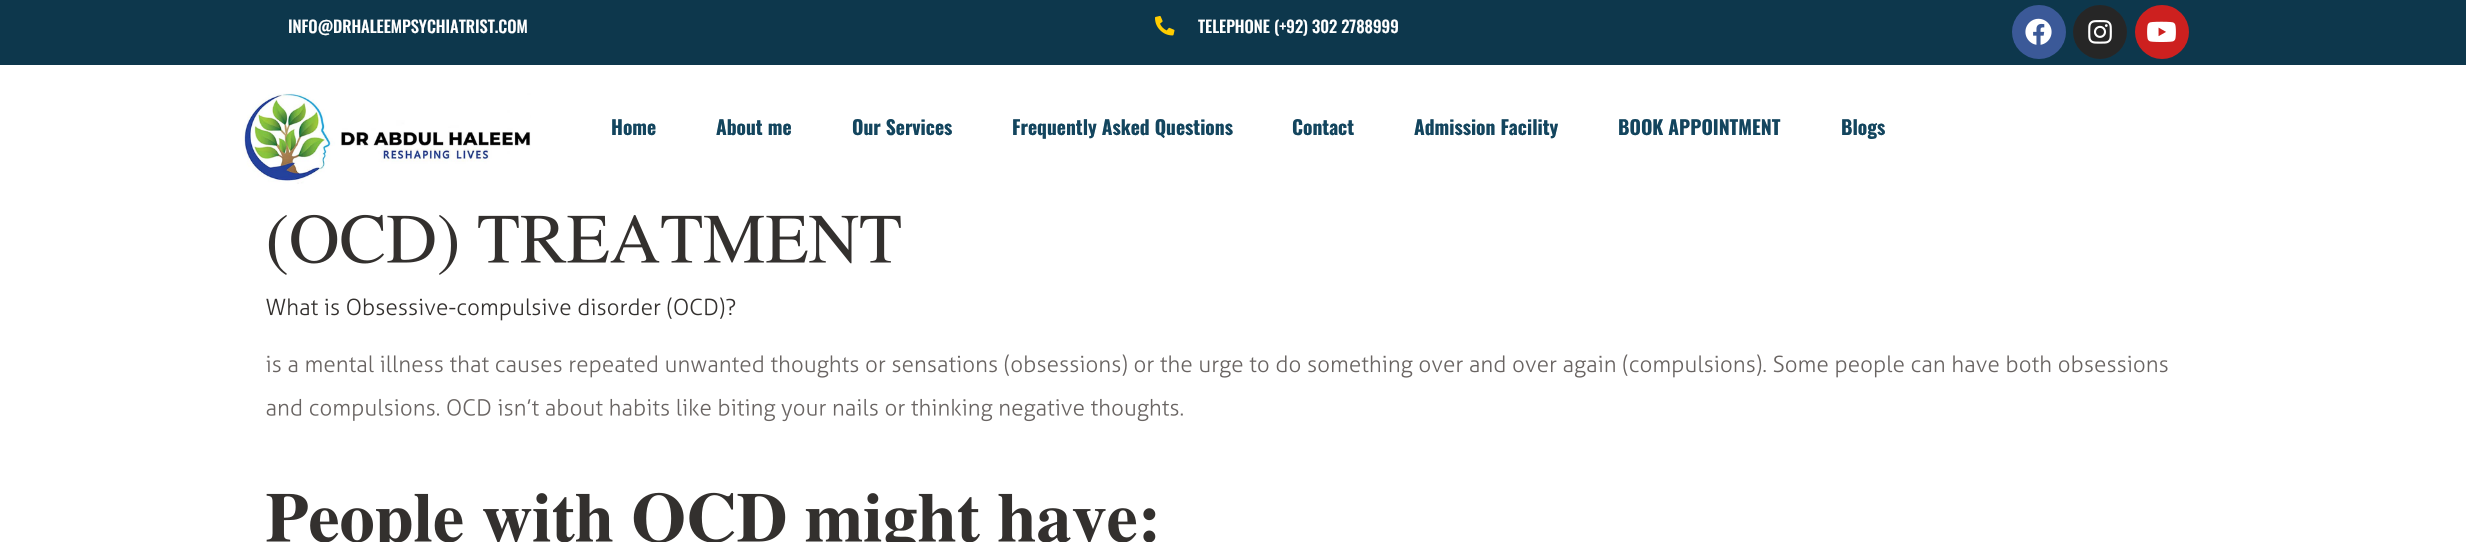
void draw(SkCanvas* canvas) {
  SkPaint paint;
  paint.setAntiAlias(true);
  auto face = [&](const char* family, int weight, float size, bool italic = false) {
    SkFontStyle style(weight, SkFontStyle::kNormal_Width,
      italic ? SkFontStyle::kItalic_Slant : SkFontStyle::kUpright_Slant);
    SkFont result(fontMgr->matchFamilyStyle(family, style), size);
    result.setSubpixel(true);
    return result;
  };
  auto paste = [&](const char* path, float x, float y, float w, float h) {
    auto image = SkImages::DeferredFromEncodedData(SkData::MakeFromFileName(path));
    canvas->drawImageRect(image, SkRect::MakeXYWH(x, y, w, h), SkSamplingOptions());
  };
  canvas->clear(0xffffffff);
  paint.setColor(0xff0d374c);
  canvas->drawRect(SkRect::MakeXYWH(0, 0, 2466, 65), paint);
  paste("img/1.png", 1155, 16, 20, 20);
  paint.setColor(0xff3b5998);
  canvas->drawCircle(2039, 32, 27, paint);
  paste("img/2.png", 2025, 18, 27, 27);
  paint.setColor(0xff262626);
  canvas->drawCircle(2100, 32, 27, paint);
  paste("img/3.png", 2088, 20, 24, 24);
  paint.setColor(0xffcd201f);
  canvas->drawCircle(2162, 32, 27, paint);
  paste("img/4.png", 2147, 21, 29, 21);
  paste("img/5.png", 242, 93, 289, 91);
  paste("img/6.png", 268, 214, 189, 61);
  paste("img/7.png", 478, 215, 423, 49);
  paste("img/8.png", 266, 297, 470, 24);
  paste("img/9.png", 266, 354, 1902, 24);
  paste("img/10.png", 266, 398, 917, 24);
  paste("img/11.png", 266, 492, 890, 50);
  auto f0 = face("Oswald", 500, 16.5f);
  paint.setColor(0xffffffff);
  canvas->drawString("INFO@DRHALEEMPSYCHIATRIST.COM", 288, 33, f0, paint);
  canvas->drawString("TELEPHONE (+92) 302 2788999", 1198, 33, f0, paint);
  auto f1 = face("Oswald", 700, 19.5f);
  paint.setColor(0xff13455e);
  {
    const struct { const char* s; float x, y; } items[] = {
      {"Home", 611, 135},
      {"About me", 716, 135},
      {"Our Services", 852, 135},
      {"Frequently Asked Questions", 1012, 135},
      {"Contact", 1292, 135},
      {"Admission Facility", 1414, 135},
      {"BOOK APPOINTMENT", 1618, 135},
      {"Blogs", 1841, 135},
    };
    for (auto [s, x, y] : items) {
      canvas->drawString(s, x, y, f1, paint);
    }
  }
}
